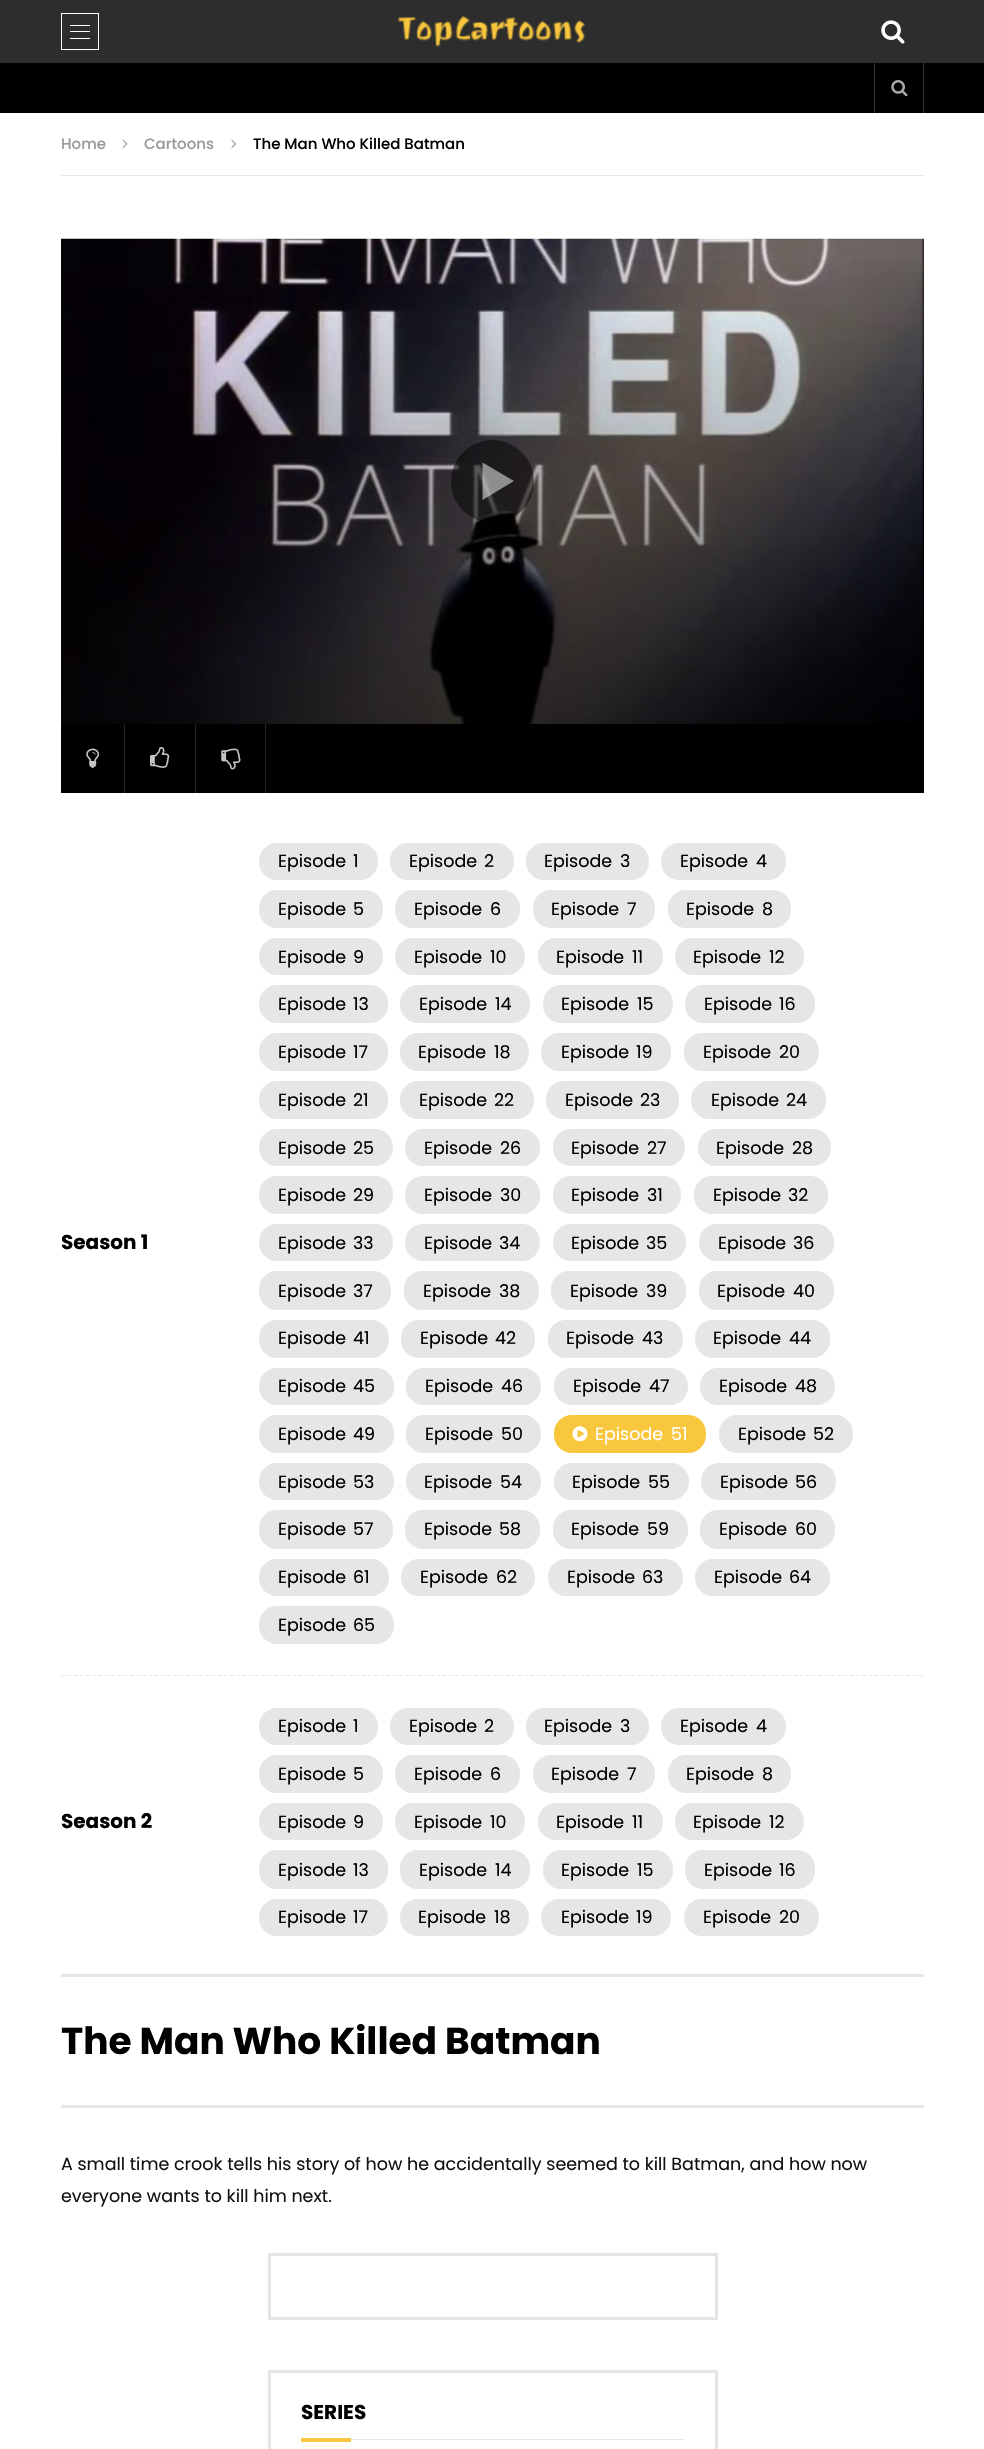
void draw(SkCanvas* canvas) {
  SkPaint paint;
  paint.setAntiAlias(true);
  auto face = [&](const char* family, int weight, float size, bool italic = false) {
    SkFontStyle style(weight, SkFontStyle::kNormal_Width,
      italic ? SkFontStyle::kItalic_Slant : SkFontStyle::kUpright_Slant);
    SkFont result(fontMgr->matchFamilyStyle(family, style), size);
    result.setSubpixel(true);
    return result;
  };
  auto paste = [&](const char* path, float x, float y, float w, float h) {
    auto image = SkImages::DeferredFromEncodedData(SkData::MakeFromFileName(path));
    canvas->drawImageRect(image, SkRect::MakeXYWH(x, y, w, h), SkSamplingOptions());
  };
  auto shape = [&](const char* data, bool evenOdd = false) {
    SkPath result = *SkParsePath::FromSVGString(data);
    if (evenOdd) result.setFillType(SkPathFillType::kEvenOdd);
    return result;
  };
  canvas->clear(0xffffffff);
  paint.setColor(0xff2d2d2d);
  canvas->drawRect(SkRect::MakeXYWH(0, 0, 984, 63), paint);
  paint.setStroke(true);
  paint.setStrokeWidth(1);
  paint.setColor(0xffffffff);
  canvas->drawRect(SkRect::MakeXYWH(61.5f, 13.5f, 37, 36), paint);
  paint.setStroke(false);
  {
    const struct { float x, y, w, h; SkColor color; } items[] = {
      {70, 25, 20, 1, 0xffffffff},
      {70, 31, 20, 1, 0xffffffff},
      {70, 38, 20, 1, 0xffffffff},
    };
    for (auto [x, y, w, h, color] : items) {
      paint.setColor(color);
      canvas->drawRect(SkRect::MakeXYWH(x, y, w, h), paint);
    }
  }
  paste("img/1.png", 397, 15, 189, 32);
  paste("img/2.png", 881, 20, 24, 24);
  {
    const struct { float x, y, w, h; SkColor color; } items[] = {
      {0, 63, 984, 50, 0xff000000},
      {923, 63, 1, 50, 0xff333333},
      {874, 63, 1, 50, 0xff333333},
    };
    for (auto [x, y, w, h, color] : items) {
      paint.setColor(color);
      canvas->drawRect(SkRect::MakeXYWH(x, y, w, h), paint);
    }
  }
  paste("img/3.png", 891, 80, 17, 17);
  paint.setColor(0xffeaeaea);
  canvas->drawRect(SkRect::MakeXYWH(61, 175, 863, 1), paint);
  paste("img/4.png", 122, 139, 6, 9);
  paste("img/5.png", 231, 139, 6, 9);
  paint.setColor(0xff000000);
  canvas->drawRect(SkRect::MakeXYWH(61, 239, 863, 485), paint);
  paste("img/6.png", 61, 238, 863, 486);
  {
    const SkColor colors[] = {0x00000000, 0x80000000};
    const float stops[] = {0, 1};
    const SkPoint ends[] = {{493, 239}, {493, 724}};
    paint.setShader(SkGradientShader::MakeLinear(ends, colors, stops, 2, SkTileMode::kClamp));
    paint.setAlpha(255);
  }
  canvas->drawRect(SkRect::MakeXYWH(61, 260, 863, 464), paint);
  paint.setShader(nullptr);
  paint.setColor(0x80000000);
  canvas->drawCircle(492.5f, 481.5f, 41.5f, paint);
  paint.setColor(0x80ffffff);
  canvas->drawPath(shape("M482.5 500V462.5L514 481Z"), paint);
  paint.setColor(0xff000000);
  canvas->drawRect(SkRect::MakeXYWH(61, 724, 863, 69), paint);
  paint.setColor(0xff262626);
  canvas->drawRect(SkRect::MakeXYWH(124, 724, 1, 69), paint);
  paste("img/7.png", 86, 748, 14, 20);
  canvas->drawRect(SkRect::MakeXYWH(195, 724, 1, 69), paint);
  paste("img/8.png", 150, 747, 20, 21);
  canvas->drawRect(SkRect::MakeXYWH(265, 724, 1, 69), paint);
  paste("img/9.png", 221, 748, 20, 22);
  paint.setColor(0xffe6e6e6);
  canvas->drawRect(SkRect::MakeXYWH(61, 1974, 863, 3), paint);
  canvas->drawRoundRect(SkRect::MakeXYWH(259, 843, 119, 37), 18, 18, paint);
  canvas->drawRoundRect(SkRect::MakeXYWH(390, 843, 124, 37), 18, 18, paint);
  canvas->drawRoundRect(SkRect::MakeXYWH(526, 843, 123, 37), 18, 18, paint);
  canvas->drawRoundRect(SkRect::MakeXYWH(661, 843, 125, 37), 18, 18, paint);
  canvas->drawRoundRect(SkRect::MakeXYWH(259, 890, 124, 38), 18, 18, paint);
  canvas->drawRoundRect(SkRect::MakeXYWH(395, 890, 125, 38), 18, 18, paint);
  canvas->drawRoundRect(SkRect::MakeXYWH(533, 890, 122, 38), 18, 18, paint);
  canvas->drawRoundRect(SkRect::MakeXYWH(668, 890, 123, 38), 18, 18, paint);
  canvas->drawRoundRect(SkRect::MakeXYWH(259, 938, 124, 37), 18, 18, paint);
  canvas->drawRoundRect(SkRect::MakeXYWH(395, 938, 130, 37), 18, 18, paint);
  canvas->drawRoundRect(SkRect::MakeXYWH(538, 938, 125, 37), 18, 18, paint);
  canvas->drawRoundRect(SkRect::MakeXYWH(675, 938, 129, 37), 18, 18, paint);
  canvas->drawRoundRect(SkRect::MakeXYWH(259, 985, 129, 38), 18, 18, paint);
  canvas->drawRoundRect(SkRect::MakeXYWH(400, 985, 130, 38), 18, 18, paint);
  canvas->drawRoundRect(SkRect::MakeXYWH(543, 985, 130, 38), 18, 18, paint);
  canvas->drawRoundRect(SkRect::MakeXYWH(685, 985, 130, 38), 18, 18, paint);
  canvas->drawRoundRect(SkRect::MakeXYWH(259, 1033, 129, 38), 18, 18, paint);
  canvas->drawRoundRect(SkRect::MakeXYWH(400, 1033, 129, 38), 18, 18, paint);
  canvas->drawRoundRect(SkRect::MakeXYWH(541, 1033, 130, 38), 18, 18, paint);
  canvas->drawRoundRect(SkRect::MakeXYWH(684, 1033, 135, 38), 18, 18, paint);
  canvas->drawRoundRect(SkRect::MakeXYWH(259, 1081, 129, 38), 18, 18, paint);
  canvas->drawRoundRect(SkRect::MakeXYWH(400, 1081, 134, 38), 18, 18, paint);
  canvas->drawRoundRect(SkRect::MakeXYWH(546, 1081, 133, 38), 18, 18, paint);
  canvas->drawRoundRect(SkRect::MakeXYWH(691, 1081, 135, 38), 18, 18, paint);
  canvas->drawRoundRect(SkRect::MakeXYWH(259, 1129, 134, 37), 18, 18, paint);
  canvas->drawRoundRect(SkRect::MakeXYWH(405, 1129, 135, 37), 18, 18, paint);
  canvas->drawRoundRect(SkRect::MakeXYWH(553, 1129, 132, 37), 18, 18, paint);
  canvas->drawRoundRect(SkRect::MakeXYWH(698, 1129, 133, 37), 18, 18, paint);
  canvas->drawRoundRect(SkRect::MakeXYWH(259, 1176, 134, 38), 18, 18, paint);
  canvas->drawRoundRect(SkRect::MakeXYWH(405, 1176, 135, 38), 18, 18, paint);
  canvas->drawRoundRect(SkRect::MakeXYWH(553, 1176, 128, 38), 18, 18, paint);
  canvas->drawRoundRect(SkRect::MakeXYWH(694, 1176, 134, 38), 18, 18, paint);
  canvas->drawRoundRect(SkRect::MakeXYWH(259, 1224, 134, 37), 18, 18, paint);
  canvas->drawRoundRect(SkRect::MakeXYWH(405, 1224, 135, 37), 18, 18, paint);
  canvas->drawRoundRect(SkRect::MakeXYWH(553, 1224, 133, 37), 18, 18, paint);
  canvas->drawRoundRect(SkRect::MakeXYWH(699, 1224, 135, 37), 18, 18, paint);
  canvas->drawRoundRect(SkRect::MakeXYWH(259, 1271, 132, 39), 18, 18, paint);
  canvas->drawRoundRect(SkRect::MakeXYWH(404, 1271, 135, 39), 18, 18, paint);
  canvas->drawRoundRect(SkRect::MakeXYWH(551, 1271, 135, 39), 18, 18, paint);
  canvas->drawRoundRect(SkRect::MakeXYWH(699, 1271, 135, 39), 18, 18, paint);
  canvas->drawRoundRect(SkRect::MakeXYWH(259, 1320, 130, 38), 18, 18, paint);
  canvas->drawRoundRect(SkRect::MakeXYWH(401, 1320, 134, 38), 18, 18, paint);
  canvas->drawRoundRect(SkRect::MakeXYWH(548, 1320, 135, 38), 18, 18, paint);
  canvas->drawRoundRect(SkRect::MakeXYWH(695, 1320, 135, 38), 18, 18, paint);
  canvas->drawRoundRect(SkRect::MakeXYWH(259, 1368, 135, 37), 18, 18, paint);
  canvas->drawRoundRect(SkRect::MakeXYWH(406, 1368, 135, 37), 18, 18, paint);
  canvas->drawRoundRect(SkRect::MakeXYWH(554, 1368, 134, 37), 18, 18, paint);
  canvas->drawRoundRect(SkRect::MakeXYWH(700, 1368, 135, 37), 18, 18, paint);
  canvas->drawRoundRect(SkRect::MakeXYWH(259, 1415, 135, 38), 18, 18, paint);
  canvas->drawRoundRect(SkRect::MakeXYWH(406, 1415, 135, 38), 18, 18, paint);
  paint.setColor(0xfff9c73d);
  canvas->drawRoundRect(SkRect::MakeXYWH(554, 1415, 152, 38), 18, 18, paint);
  paste("img/10.png", 572, 1426, 16, 16);
  paint.setColor(0xffe6e6e6);
  canvas->drawRoundRect(SkRect::MakeXYWH(719, 1415, 134, 38), 18, 18, paint);
  canvas->drawRoundRect(SkRect::MakeXYWH(259, 1463, 135, 37), 18, 18, paint);
  canvas->drawRoundRect(SkRect::MakeXYWH(406, 1463, 135, 37), 18, 18, paint);
  canvas->drawRoundRect(SkRect::MakeXYWH(554, 1463, 135, 37), 18, 18, paint);
  canvas->drawRoundRect(SkRect::MakeXYWH(701, 1463, 135, 37), 18, 18, paint);
  canvas->drawRoundRect(SkRect::MakeXYWH(259, 1510, 134, 39), 18, 18, paint);
  canvas->drawRoundRect(SkRect::MakeXYWH(405, 1510, 135, 39), 18, 18, paint);
  canvas->drawRoundRect(SkRect::MakeXYWH(553, 1510, 135, 39), 18, 18, paint);
  canvas->drawRoundRect(SkRect::MakeXYWH(700, 1510, 135, 39), 18, 18, paint);
  canvas->drawRoundRect(SkRect::MakeXYWH(259, 1559, 130, 37), 18, 18, paint);
  canvas->drawRoundRect(SkRect::MakeXYWH(401, 1559, 134, 37), 18, 18, paint);
  canvas->drawRoundRect(SkRect::MakeXYWH(548, 1559, 135, 37), 18, 18, paint);
  canvas->drawRoundRect(SkRect::MakeXYWH(695, 1559, 135, 37), 18, 18, paint);
  canvas->drawRoundRect(SkRect::MakeXYWH(259, 1606, 135, 38), 18, 18, paint);
  paint.setStroke(true);
  paint.setStrokeWidth(1.2f);
  paint.setPathEffect(SkDashPathEffect::Make({{3.75f, 2.51f}}, 0));
  canvas->drawPath(shape("M61 1675.5H924"), paint);
  paint.setPathEffect(nullptr);
  paint.setStroke(false);
  canvas->drawRoundRect(SkRect::MakeXYWH(259, 1708, 119, 37), 18, 18, paint);
  canvas->drawRoundRect(SkRect::MakeXYWH(390, 1708, 124, 37), 18, 18, paint);
  canvas->drawRoundRect(SkRect::MakeXYWH(526, 1708, 123, 37), 18, 18, paint);
  canvas->drawRoundRect(SkRect::MakeXYWH(661, 1708, 125, 37), 18, 18, paint);
  canvas->drawRoundRect(SkRect::MakeXYWH(259, 1755, 124, 38), 18, 18, paint);
  canvas->drawRoundRect(SkRect::MakeXYWH(395, 1755, 125, 38), 18, 18, paint);
  canvas->drawRoundRect(SkRect::MakeXYWH(533, 1755, 122, 38), 18, 18, paint);
  canvas->drawRoundRect(SkRect::MakeXYWH(668, 1755, 123, 38), 18, 18, paint);
  canvas->drawRoundRect(SkRect::MakeXYWH(259, 1803, 124, 37), 18, 18, paint);
  canvas->drawRoundRect(SkRect::MakeXYWH(395, 1803, 130, 37), 18, 18, paint);
  canvas->drawRoundRect(SkRect::MakeXYWH(538, 1803, 125, 37), 18, 18, paint);
  canvas->drawRoundRect(SkRect::MakeXYWH(675, 1803, 129, 37), 18, 18, paint);
  canvas->drawRoundRect(SkRect::MakeXYWH(259, 1850, 129, 39), 18, 18, paint);
  canvas->drawRoundRect(SkRect::MakeXYWH(400, 1850, 130, 39), 18, 18, paint);
  canvas->drawRoundRect(SkRect::MakeXYWH(543, 1850, 130, 39), 18, 18, paint);
  canvas->drawRoundRect(SkRect::MakeXYWH(685, 1850, 130, 39), 18, 18, paint);
  canvas->drawRoundRect(SkRect::MakeXYWH(259, 1899, 129, 37), 18, 18, paint);
  canvas->drawRoundRect(SkRect::MakeXYWH(400, 1899, 129, 37), 18, 18, paint);
  canvas->drawRoundRect(SkRect::MakeXYWH(541, 1899, 130, 37), 18, 18, paint);
  canvas->drawRoundRect(SkRect::MakeXYWH(684, 1899, 135, 37), 18, 18, paint);
  canvas->drawRect(SkRect::MakeXYWH(61, 2105, 863, 3), paint);
  paint.setStroke(true);
  paint.setStrokeWidth(3);
  paint.setColor(0xffe5e5e5);
  canvas->drawRect(SkRect::MakeXYWH(269.5f, 2254.5f, 447, 64), paint);
  canvas->drawRect(SkRect::MakeXYWH(269.5f, 2371.5f, 447, 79), paint);
  paint.setStroke(false);
  paint.setColor(0xfff9c73d);
  canvas->drawRect(SkRect::MakeXYWH(301, 2438, 50, 4), paint);
  paint.setColor(0xffeaeaea);
  canvas->drawRect(SkRect::MakeXYWH(351, 2439, 333, 1), paint);
  auto f0 = face("Poppins", 500, 15);
  paint.setColor(0xff999999);
  canvas->drawString("Home", 61, 149, f0, paint);
  canvas->drawString("Cartoons", 144, 149, f0, paint);
  paint.setColor(0xff000000);
  canvas->drawString("The Man Who Killed Batman", 253, 149, f0, paint);
  auto f1 = face("Poppins", 700, 20);
  canvas->drawString("Season 1", 61, 1249, f1, paint);
  auto f2 = face("Poppins", 400, 17.5f);
  {
    const struct { const char* s; float x, y; } items[] = {
      {"Episode", 278, 867},
      {"1", 353, 867},
      {"Episode", 409, 867},
      {"2", 484, 867},
      {"Episode", 544, 867},
      {"3", 620, 867},
      {"Episode", 680, 867},
      {"4", 756, 867},
      {"Episode", 278, 915},
      {"5", 353, 915},
      {"Episode", 414, 915},
      {"6", 490, 915},
      {"Episode", 551, 915},
      {"7", 627, 915},
      {"Episode", 686, 915},
      {"8", 762, 915},
      {"Episode", 278, 963},
      {"9", 353, 963},
      {"Episode", 414, 963},
      {"10", 490, 963},
      {"Episode", 556, 963},
      {"11", 632, 963},
      {"Episode", 693, 963},
      {"12", 769, 963},
      {"Episode", 278, 1010},
      {"13", 353, 1010},
      {"Episode", 419, 1010},
      {"14", 495, 1010},
      {"Episode", 561, 1010},
      {"15", 637, 1010},
      {"Episode", 704, 1010},
      {"16", 779, 1010},
      {"Episode", 278, 1058},
      {"17", 353, 1058},
      {"Episode", 418, 1058},
      {"18", 494, 1058},
      {"Episode", 561, 1058},
      {"19", 636, 1058},
      {"Episode", 703, 1058},
      {"20", 779, 1058},
      {"Episode", 278, 1106},
      {"21", 353, 1106},
      {"Episode", 419, 1106},
      {"22", 494, 1106},
      {"Episode", 565, 1106},
      {"23", 640, 1106},
      {"Episode", 711, 1106},
      {"24", 786, 1106},
      {"Episode", 278, 1154},
      {"25", 353, 1154},
      {"Episode", 424, 1154},
      {"26", 500, 1154},
      {"Episode", 571, 1154},
      {"27", 647, 1154},
      {"Episode", 716, 1154},
      {"28", 792, 1154},
      {"Episode", 278, 1201},
      {"29", 353, 1201},
      {"Episode", 424, 1201},
      {"30", 500, 1201},
      {"Episode", 571, 1201},
      {"31", 647, 1201},
      {"Episode", 713, 1201},
      {"32", 788, 1201},
      {"Episode", 278, 1249},
      {"33", 353, 1249},
      {"Episode", 424, 1249},
      {"34", 499, 1249},
      {"Episode", 571, 1249},
      {"35", 646, 1249},
      {"Episode", 718, 1249},
      {"36", 793, 1249},
      {"Episode", 278, 1297},
      {"37", 353, 1297},
      {"Episode", 423, 1297},
      {"38", 499, 1297},
      {"Episode", 570, 1297},
      {"39", 646, 1297},
      {"Episode", 717, 1297},
      {"40", 793, 1297},
      {"Episode", 278, 1344},
      {"41", 353, 1344},
      {"Episode", 420, 1344},
      {"42", 495, 1344},
      {"Episode", 566, 1344},
      {"43", 642, 1344},
      {"Episode", 713, 1344},
      {"44", 789, 1344},
      {"Episode", 278, 1392},
      {"45", 353, 1392},
      {"Episode", 425, 1392},
      {"46", 501, 1392},
      {"Episode", 573, 1392},
      {"47", 649, 1392},
      {"Episode", 719, 1392},
      {"48", 795, 1392},
      {"Episode", 278, 1440},
      {"49", 353, 1440},
      {"Episode", 425, 1440},
      {"50", 501, 1440},
    };
    for (auto [s, x, y] : items) {
      canvas->drawString(s, x, y, f2, paint);
    }
  }
  paint.setColor(0xffffffff);
  canvas->drawString("Episode", 595, 1440, f2, paint);
  canvas->drawString("51", 671, 1440, f2, paint);
  paint.setColor(0xff000000);
  {
    const struct { const char* s; float x, y; } items[] = {
      {"Episode", 738, 1440},
      {"52", 813, 1440},
      {"Episode", 278, 1488},
      {"53", 353, 1488},
      {"Episode", 424, 1488},
      {"54", 500, 1488},
      {"Episode", 572, 1488},
      {"55", 648, 1488},
      {"Episode", 720, 1488},
      {"56", 795, 1488},
      {"Episode", 278, 1535},
      {"57", 353, 1535},
      {"Episode", 424, 1535},
      {"58", 499, 1535},
      {"Episode", 571, 1535},
      {"59", 647, 1535},
      {"Episode", 719, 1535},
      {"60", 795, 1535},
      {"Episode", 278, 1583},
      {"61", 353, 1583},
      {"Episode", 420, 1583},
      {"62", 496, 1583},
      {"Episode", 567, 1583},
      {"63", 642, 1583},
      {"Episode", 714, 1583},
      {"64", 789, 1583},
      {"Episode", 278, 1631},
      {"65", 353, 1631},
    };
    for (auto [s, x, y] : items) {
      canvas->drawString(s, x, y, f2, paint);
    }
  }
  canvas->drawString("Season 2", 61, 1828, f1, paint);
  {
    const struct { const char* s; float x, y; } items[] = {
      {"Episode", 278, 1732},
      {"1", 353, 1732},
      {"Episode", 409, 1732},
      {"2", 484, 1732},
      {"Episode", 544, 1732},
      {"3", 620, 1732},
      {"Episode", 680, 1732},
      {"4", 756, 1732},
      {"Episode", 278, 1780},
      {"5", 353, 1780},
      {"Episode", 414, 1780},
      {"6", 490, 1780},
      {"Episode", 551, 1780},
      {"7", 627, 1780},
      {"Episode", 686, 1780},
      {"8", 762, 1780},
      {"Episode", 278, 1828},
      {"9", 353, 1828},
      {"Episode", 414, 1828},
      {"10", 490, 1828},
      {"Episode", 556, 1828},
      {"11", 632, 1828},
      {"Episode", 693, 1828},
      {"12", 769, 1828},
      {"Episode", 278, 1876},
      {"13", 353, 1876},
      {"Episode", 419, 1876},
      {"14", 495, 1876},
      {"Episode", 561, 1876},
      {"15", 637, 1876},
      {"Episode", 704, 1876},
      {"16", 779, 1876},
      {"Episode", 278, 1923},
      {"17", 353, 1923},
      {"Episode", 418, 1923},
      {"18", 494, 1923},
      {"Episode", 561, 1923},
      {"19", 636, 1923},
      {"Episode", 703, 1923},
      {"20", 779, 1923},
    };
    for (auto [s, x, y] : items) {
      canvas->drawString(s, x, y, f2, paint);
    }
  }
  auto f3 = face("Poppins", 700, 37.5f);
  canvas->drawString("The Man Who Killed Batman", 61, 2054, f3, paint);
  paint.setColor(0xff111111);
  canvas->drawString("A small time crook tells his story of how he accidentally seemed to kill Batman, and how now", 61, 2170, f2, paint);
  canvas->drawString("everyone wants to kill him next.", 61, 2202, f2, paint);
  paint.setColor(0xff000000);
  canvas->drawString("SERIES", 301, 2419, f1, paint);
}
